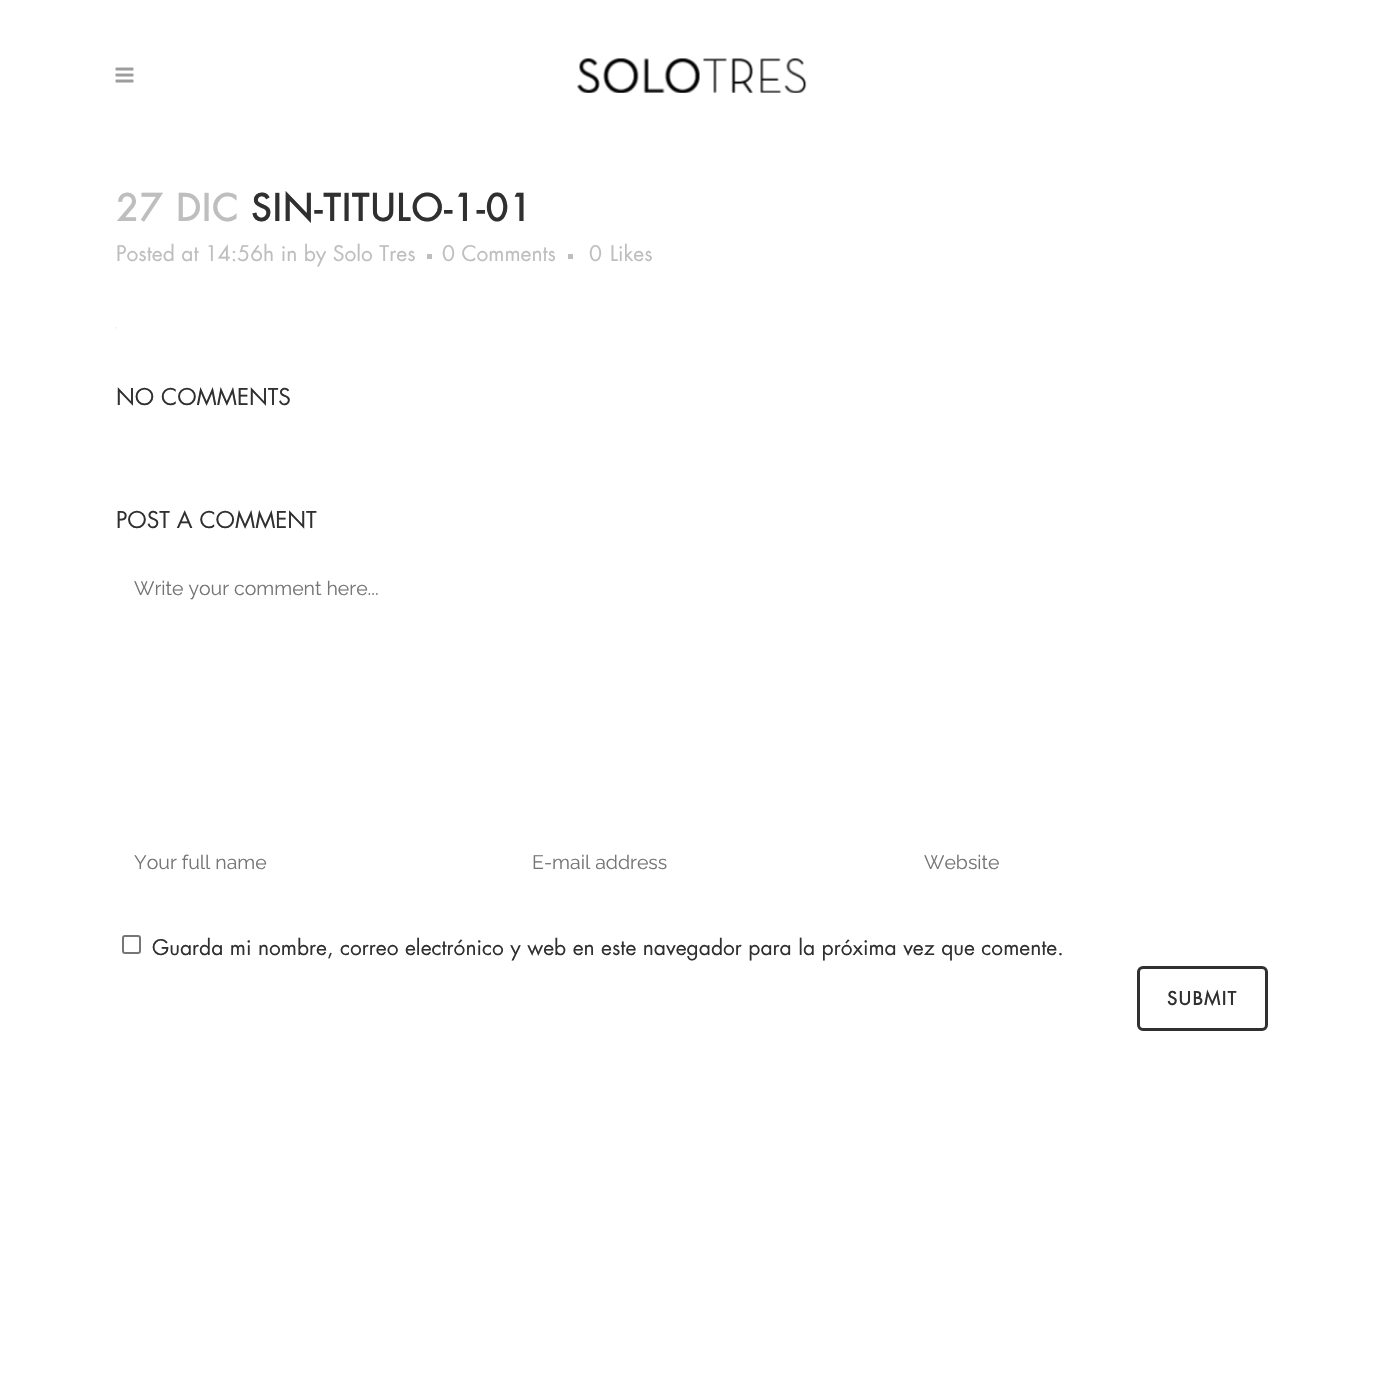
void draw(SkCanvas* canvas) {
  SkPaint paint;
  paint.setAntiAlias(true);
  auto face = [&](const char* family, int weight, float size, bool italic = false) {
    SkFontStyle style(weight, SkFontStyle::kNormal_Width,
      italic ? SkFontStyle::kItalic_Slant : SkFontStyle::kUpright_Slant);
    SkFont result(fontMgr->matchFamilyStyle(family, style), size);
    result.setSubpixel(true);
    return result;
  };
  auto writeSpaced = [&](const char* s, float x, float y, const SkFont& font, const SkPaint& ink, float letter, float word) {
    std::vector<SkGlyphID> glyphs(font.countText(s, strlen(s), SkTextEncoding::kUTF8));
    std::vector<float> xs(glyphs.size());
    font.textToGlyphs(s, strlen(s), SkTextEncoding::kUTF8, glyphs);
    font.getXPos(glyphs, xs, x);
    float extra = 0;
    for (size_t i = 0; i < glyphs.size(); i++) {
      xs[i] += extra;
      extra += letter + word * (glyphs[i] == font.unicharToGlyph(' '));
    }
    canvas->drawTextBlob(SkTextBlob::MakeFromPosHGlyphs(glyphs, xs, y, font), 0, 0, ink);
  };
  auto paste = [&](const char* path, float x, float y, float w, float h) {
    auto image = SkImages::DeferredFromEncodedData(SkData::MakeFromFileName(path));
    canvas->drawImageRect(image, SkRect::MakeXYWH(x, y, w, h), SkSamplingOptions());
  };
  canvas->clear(0xffffffff);
  paste("img/1.png", 115, 67, 19, 16);
  paste("img/2.png", 577, 58, 230, 35);
  paint.setColor(0xffbebebe);
  canvas->drawRect(SkRect::MakeXYWH(427, 254, 5, 5), paint);
  canvas->drawRect(SkRect::MakeXYWH(568, 254, 5, 5), paint);
  paste("img/3.png", 115, 327, 2, 2);
  paint.setStroke(true);
  paint.setStrokeWidth(2);
  paint.setColor(0xff767676);
  canvas->drawRoundRect(SkRect::MakeXYWH(123, 936, 17, 17), 2, 2, paint);
  paint.setStrokeWidth(3);
  paint.setColor(0xff303030);
  canvas->drawRoundRect(SkRect::MakeXYWH(1138.5f, 967.5f, 128, 62), 4.5f, 4.5f, paint);
  auto f0 = face("Futura", 700, 36);
  paint.setStroke(false);
  paint.setColor(0xffbebebe);
  writeSpaced("27 DIC", 116, 221, f0, paint, 1.5f, 0);
  paint.setColor(0xff303030);
  writeSpaced("SIN-TITULO-1-01", 251, 221, f0, paint, 1.5f, 0);
  auto f1 = face("Futura", 400, 21);
  paint.setColor(0xffbebebe);
  {
    const struct { const char* s; float x, y; } items[] = {
      {"Posted at 14:56h in by Solo Tres", 116, 261},
      {"0 Comments", 442, 261},
      {"0", 589, 261},
      {"Likes", 610, 261},
    };
    for (auto [s, x, y] : items) {
      canvas->drawString(s, x, y, f1, paint);
    }
  }
  auto f2 = face("Futura", 400, 22.5f);
  paint.setColor(0xff303030);
  canvas->drawString("NO COMMENTS", 116, 405, f2, paint);
  canvas->drawString("POST A COMMENT", 116, 528, f2, paint);
  auto f3 = face("Raleway", 400, 19.5f);
  paint.setColor(0xff757575);
  {
    const struct { const char* s; float x, y; } items[] = {
      {"Write your comment here...", 134, 595},
      {"Your full name", 134, 869},
      {"E-mail address", 532, 869},
      {"Website", 924, 869},
    };
    for (auto [s, x, y] : items) {
      canvas->drawString(s, x, y, f3, paint);
    }
  }
  paint.setColor(0xff303030);
  canvas->drawString("Guarda mi nombre, correo electrónico y web en este navegador para la próxima vez que comente.", 152, 955, f1, paint);
  auto f4 = face("Futura", 700, 18);
  writeSpaced("SUBMIT", 1167, 1005, f4, paint, 1.5f, 0);
}
